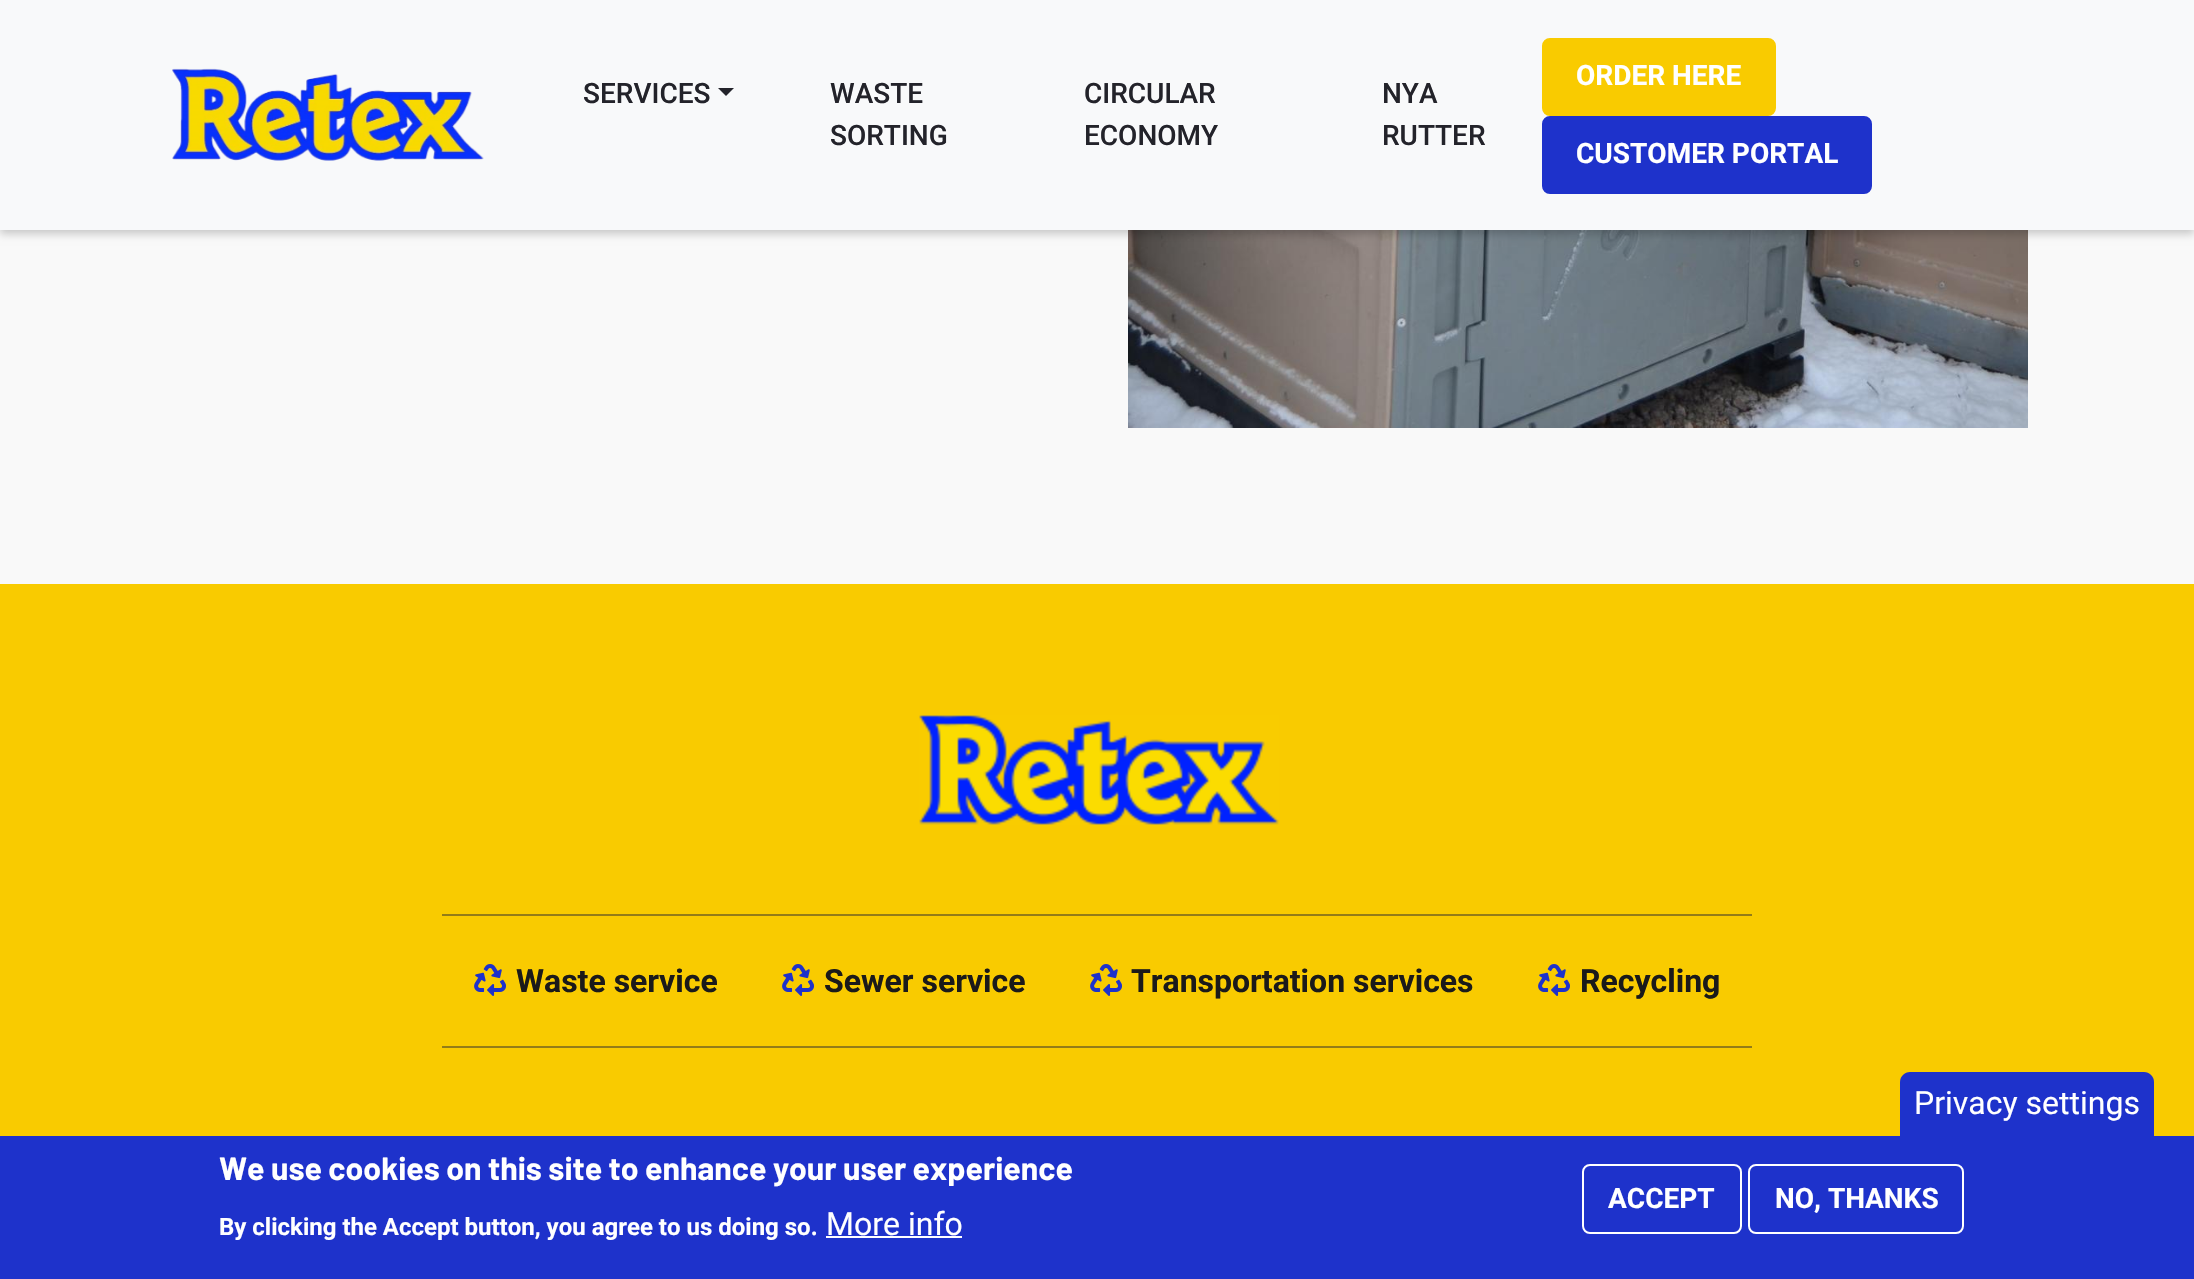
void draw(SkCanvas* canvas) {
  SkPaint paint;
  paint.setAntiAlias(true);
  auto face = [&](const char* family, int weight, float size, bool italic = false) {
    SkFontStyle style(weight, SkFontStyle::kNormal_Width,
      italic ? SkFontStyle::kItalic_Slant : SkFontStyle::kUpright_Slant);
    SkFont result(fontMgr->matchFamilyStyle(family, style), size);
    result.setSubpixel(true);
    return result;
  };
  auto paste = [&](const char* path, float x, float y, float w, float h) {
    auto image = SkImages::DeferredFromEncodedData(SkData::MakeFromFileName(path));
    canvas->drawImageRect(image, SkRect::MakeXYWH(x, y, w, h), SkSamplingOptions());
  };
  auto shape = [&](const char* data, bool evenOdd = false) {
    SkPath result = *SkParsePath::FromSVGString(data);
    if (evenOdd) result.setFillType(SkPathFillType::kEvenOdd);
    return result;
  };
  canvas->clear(0xfff9f9f9);
  paste("img/2.png", 1128, 230, 900, 198);
  paint.setColor(0x33000000);
  paint.setMaskFilter(SkMaskFilter::MakeBlur(kNormal_SkBlurStyle, 4));
  canvas->drawRect(SkRect::MakeXYWH(0, 4, 2194, 230), paint);
  paint.setMaskFilter(nullptr);
  paint.setColor(0xfff8f9fa);
  canvas->drawRect(SkRect::MakeXYWH(0, 0, 2194, 230), paint);
  paste("img/1.png", 172, 68, 312, 93);
  paint.setColor(0xff23232a);
  canvas->drawPath(shape("M718 88H734L726 96Z"), paint);
  paint.setColor(0xfff9cb00);
  canvas->drawRoundRect(SkRect::MakeXYWH(1543, 39, 232, 76), 7, 7, paint);
  paint.setStroke(true);
  paint.setStrokeWidth(2);
  canvas->drawRoundRect(SkRect::MakeXYWH(1543, 39, 232, 76), 7, 7, paint);
  paint.setStroke(false);
  paint.setColor(0xff1e32cb);
  canvas->drawRoundRect(SkRect::MakeXYWH(1543, 117, 328, 76), 7, 7, paint);
  paint.setStroke(true);
  canvas->drawRoundRect(SkRect::MakeXYWH(1543, 117, 328, 76), 7, 7, paint);
  paint.setStroke(false);
  paint.setColor(0xfff9cb00);
  canvas->drawRect(SkRect::MakeXYWH(0, 584, 2194, 552), paint);
  paste("img/3.png", 919, 715, 360, 110);
  paint.setColor(0xff937c18);
  canvas->drawRect(SkRect::MakeXYWH(442, 914, 1310, 2), paint);
  canvas->drawRect(SkRect::MakeXYWH(442, 1046, 1310, 2), paint);
  paste("img/4.png", 474, 964, 32, 32);
  paste("img/4.png", 782, 964, 32, 32);
  paste("img/4.png", 1090, 964, 32, 32);
  paste("img/4.png", 1538, 964, 32, 32);
  paint.setColor(0xff1e32cb);
  canvas->drawRect(SkRect::MakeXYWH(0, 1136, 2194, 143), paint);
  canvas->drawPath(shape("M1910 1072H2144C2149.5 1072 2154 1076.5 2154 1082V1136H1900V1082C1900 1076.5 1904.5 1072 1910 1072Z"), paint);
  paint.setColor(0xffffffff);
  canvas->drawRect(SkRect::MakeXYWH(826, 1236, 136, 2), paint);
  paint.setStroke(true);
  canvas->drawRoundRect(SkRect::MakeXYWH(1583, 1165, 158, 68), 7, 7, paint);
  canvas->drawRoundRect(SkRect::MakeXYWH(1749, 1165, 214, 68), 7, 7, paint);
  auto f0 = face("Roboto", 500, 28);
  paint.setStroke(false);
  paint.setColor(0xff23232a);
  {
    const struct { const char* s; float x, y; } items[] = {
      {"SERVICES", 583, 103},
      {"WASTE", 830, 103},
      {"SORTING", 830, 145},
      {"CIRCULAR", 1084, 103},
      {"ECONOMY", 1084, 145},
      {"NYA", 1382, 103},
      {"RUTTER", 1382, 145},
    };
    for (auto [s, x, y] : items) {
      canvas->drawString(s, x, y, f0, paint);
    }
  }
  auto f1 = face("Roboto", 700, 28);
  paint.setColor(0xffffffff);
  canvas->drawString("ORDER HERE", 1576, 85, f1, paint);
  canvas->drawString("CUSTOMER PORTAL", 1576, 163, f1, paint);
  auto f2 = face("Roboto", 700, 32);
  paint.setColor(0xff1b1a1a);
  {
    const struct { const char* s; float x, y; } items[] = {
      {"Waste service", 516, 992},
      {"Sewer service", 824, 992},
      {"Transportation services", 1131, 992},
      {"Recycling", 1580, 992},
    };
    for (auto [s, x, y] : items) {
      canvas->drawString(s, x, y, f2, paint);
    }
  }
  auto f3 = face("Roboto", 400, 32);
  paint.setColor(0xffffffff);
  canvas->drawString("Privacy settings", 1914, 1114, f3, paint);
  auto f4 = face("Barlow", 700, 32);
  canvas->drawString("We use cookies on this site to enhance your user experience", 219, 1180, f4, paint);
  auto f5 = face("Roboto", 700, 24);
  canvas->drawString("By clicking the Accept button, you agree to us doing so.", 219, 1235, f5, paint);
  canvas->drawString("More info", 826, 1235, f3, paint);
  canvas->drawString("ACCEPT", 1608, 1208, f1, paint);
  canvas->drawString("NO, THANKS", 1775, 1208, f1, paint);
}
